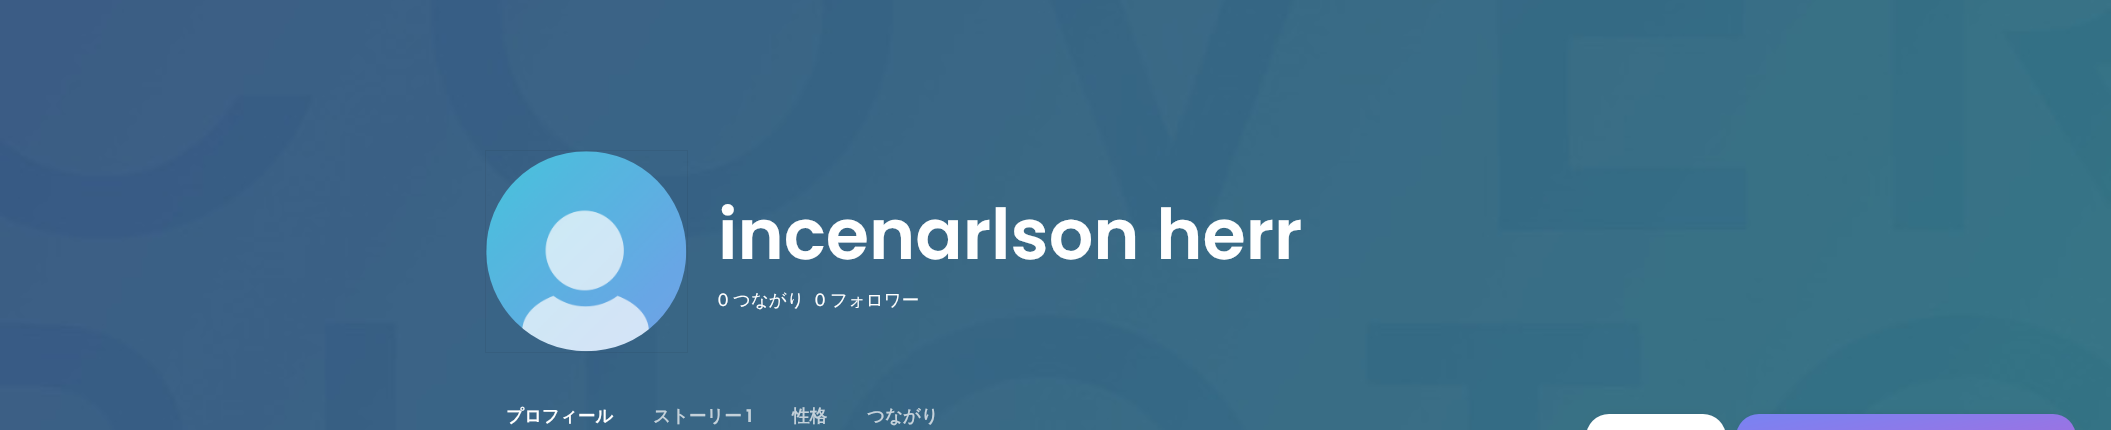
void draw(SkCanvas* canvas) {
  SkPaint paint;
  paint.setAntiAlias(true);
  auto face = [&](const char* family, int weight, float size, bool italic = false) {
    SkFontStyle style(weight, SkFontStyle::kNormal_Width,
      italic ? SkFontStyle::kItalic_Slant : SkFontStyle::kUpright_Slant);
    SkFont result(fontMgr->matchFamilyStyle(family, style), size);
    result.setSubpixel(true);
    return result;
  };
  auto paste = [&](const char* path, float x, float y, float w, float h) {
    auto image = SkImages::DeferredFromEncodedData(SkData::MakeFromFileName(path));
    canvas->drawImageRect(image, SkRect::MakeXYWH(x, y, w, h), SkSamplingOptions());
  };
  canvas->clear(0xffffffff);
  paste("img/1.png", 0, 0, 2111, 430);
  paint.setStroke(true);
  paint.setStrokeWidth(1);
  paint.setColor(0x0f000000);
  canvas->drawRect(SkRect::MakeXYWH(485.5f, 150.5f, 202, 202), paint);
  paste("img/2.png", 486, 151, 201, 201);
  paint.setStroke(false);
  paint.setColor(0x1a000000);
  paint.setMaskFilter(SkMaskFilter::MakeBlur(kNormal_SkBlurStyle, 4));
  canvas->drawRoundRect(SkRect::MakeXYWH(1586, 416, 140, 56), 30, 30, paint);
  paint.setMaskFilter(nullptr);
  paint.setColor(0xffffffff);
  canvas->drawRoundRect(SkRect::MakeXYWH(1586, 414, 140, 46), 30, 30, paint);
  paint.setColor(0x1a000000);
  paint.setMaskFilter(SkMaskFilter::MakeBlur(kNormal_SkBlurStyle, 4));
  canvas->drawRoundRect(SkRect::MakeXYWH(1736, 416, 340, 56), 30, 30, paint);
  paint.setMaskFilter(nullptr);
  {
    const SkColor colors[] = {0xff7983f2, 0xffab6bdb};
    const float stops[] = {0, 1};
    const SkPoint ends[] = {{1896, 386}, {1917, 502}};
    paint.setShader(SkGradientShader::MakeLinear(ends, colors, stops, 2, SkTileMode::kClamp));
    paint.setAlpha(255);
  }
  canvas->drawRoundRect(SkRect::MakeXYWH(1736, 414, 340, 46), 30, 30, paint);
  auto f0 = face("Poppins", 600, 70);
  paint.setShader(nullptr);
  paint.setColor(0xffffffff);
  canvas->drawString("incenarlson herr", 718, 259, f0, paint);
  auto f1 = face("Lato", 400, 17.5f);
  canvas->drawString("0", 718, 306, f1, paint);
  auto f2 = face("WenQuanYi Zen Hei", 500, 17.5f);
  canvas->drawString("つながり", 733, 306, f2, paint);
  canvas->drawString("0", 815, 306, f1, paint);
  canvas->drawString("フォロワー", 830, 306, f2, paint);
  auto f3 = face("WenQuanYi Zen Hei", 700, 17.5f);
  canvas->drawString("プロフィール", 506, 422, f3, paint);
  paint.setColor(0xffc4d1da);
  canvas->drawString("ストーリー", 653, 422, f3, paint);
  auto f4 = face("Poppins", 600, 17.5f);
  canvas->drawString("1", 746, 422, f4, paint);
  canvas->drawString("性格", 792, 422, f3, paint);
  canvas->drawString("つながり", 867, 422, f3, paint);
}
